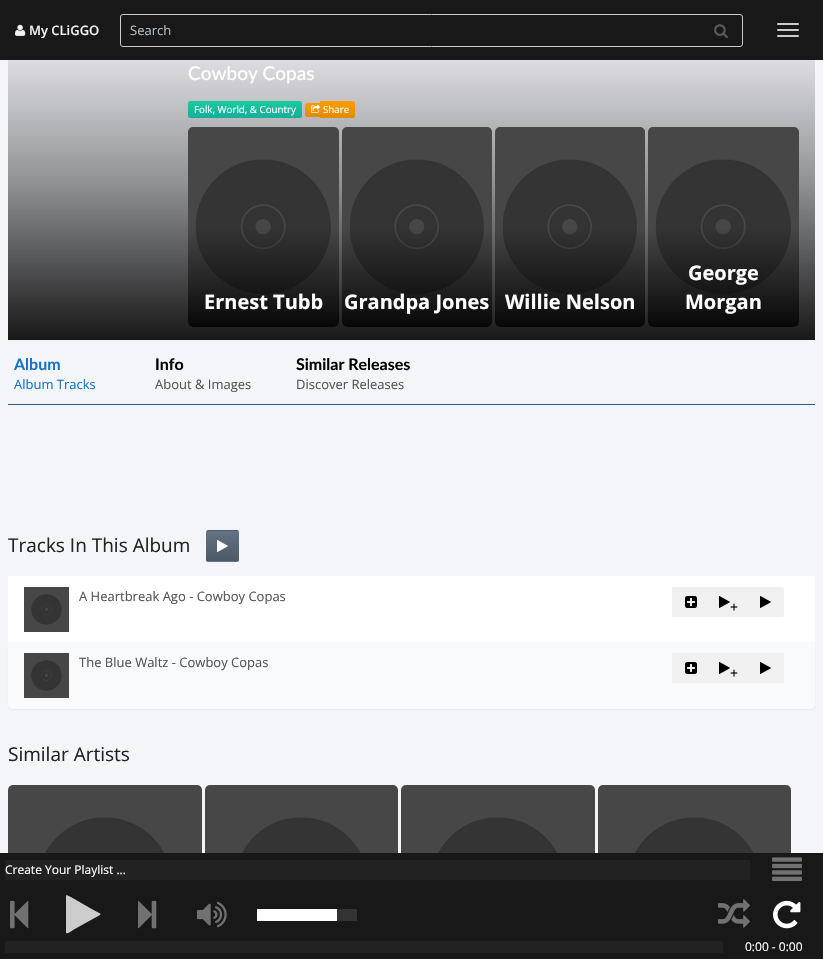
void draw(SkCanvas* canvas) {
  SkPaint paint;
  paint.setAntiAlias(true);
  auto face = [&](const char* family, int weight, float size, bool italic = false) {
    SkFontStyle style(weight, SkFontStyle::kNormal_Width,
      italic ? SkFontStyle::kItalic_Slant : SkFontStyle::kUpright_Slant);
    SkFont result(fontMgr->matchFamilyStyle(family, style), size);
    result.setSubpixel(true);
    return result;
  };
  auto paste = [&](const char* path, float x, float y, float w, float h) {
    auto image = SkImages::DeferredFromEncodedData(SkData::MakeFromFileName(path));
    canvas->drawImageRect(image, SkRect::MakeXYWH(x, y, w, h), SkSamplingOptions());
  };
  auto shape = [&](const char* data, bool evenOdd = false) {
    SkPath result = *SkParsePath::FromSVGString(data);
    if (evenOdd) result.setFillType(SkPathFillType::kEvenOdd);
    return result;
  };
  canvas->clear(0xfff3f5f9);
  paint.setColor(0xff181818);
  canvas->drawRect(SkRect::MakeXYWH(0, 0, 823, 60), paint);
  paste("img/1.png", 15, 24, 11, 12);
  paint.setStroke(true);
  paint.setStrokeWidth(1);
  paint.setColor(0xffcccccc);
  canvas->drawRoundRect(SkRect::MakeXYWH(120.5f, 14.5f, 622, 32), 2.5f, 2.5f, paint);
  paste("img/2.png", 714, 24, 14, 14);
  paint.setStroke(false);
  canvas->drawRoundRect(SkRect::MakeXYWH(777, 23, 22, 2), 1, 1, paint);
  canvas->drawRoundRect(SkRect::MakeXYWH(777, 29, 22, 2), 1, 1, paint);
  canvas->drawRoundRect(SkRect::MakeXYWH(777, 35, 22, 2), 1, 1, paint);
  {
    const SkColor colors[] = {0xfff4f4f8, 0xff929395, 0xff181819};
    const float stops[] = {0, 0.5f, 1};
    const SkPoint ends[] = {{412, 22}, {412, 340}};
    paint.setShader(SkGradientShader::MakeLinear(ends, colors, stops, 3, SkTileMode::kClamp));
    paint.setAlpha(255);
  }
  canvas->drawRect(SkRect::MakeXYWH(8, 60, 807, 280), paint);
  {
    const SkColor colors[] = {0xff18cc9c, 0xff18ac9c};
    const float stops[] = {0, 1};
    const SkPoint ends[] = {{245, 101}, {245, 118}};
    paint.setShader(SkGradientShader::MakeLinear(ends, colors, stops, 2, SkTileMode::kClamp));
    paint.setAlpha(255);
  }
  canvas->drawRoundRect(SkRect::MakeXYWH(188, 101, 114, 17), 2.5f, 2.5f, paint);
  {
    const SkColor colors[] = {0xffff9d00, 0xffe08a00};
    const float stops[] = {0, 1};
    const SkPoint ends[] = {{313, 103}, {313, 117}};
    paint.setShader(SkGradientShader::MakeLinear(ends, colors, stops, 2, SkTileMode::kClamp));
    paint.setAlpha(255);
  }
  canvas->drawPath(shape("M307.5 103H320V117H307.5C306 117 305 116 305 114.5V105.5C305 104 306 103 307.5 103Z"), paint);
  {
    const SkColor colors[] = {0xffff9d00, 0xffe08a00};
    const float stops[] = {0, 1};
    const SkPoint ends[] = {{338, 101}, {338, 118}};
    paint.setShader(SkGradientShader::MakeLinear(ends, colors, stops, 2, SkTileMode::kClamp));
    paint.setAlpha(255);
  }
  canvas->drawPath(shape("M320 101H352.5C354 101 355 102 355 103.5V115.5C355 117 354 118 352.5 118H320Z"), paint);
  paste("img/3.png", 311, 104, 9, 9);
  paste("img/4.png", 188, 127, 151, 200);
  {
    const SkColor colors[] = {0x00000000, 0x00000000, 0xe6000000};
    const float stops[] = {0, 0.5f, 1};
    const SkPoint ends[] = {{264, 127}, {264, 327}};
    paint.setShader(SkGradientShader::MakeLinear(ends, colors, stops, 3, SkTileMode::kClamp));
    paint.setAlpha(255);
  }
  canvas->drawRoundRect(SkRect::MakeXYWH(188, 127, 151, 200), 5, 5, paint);
  paste("img/5.png", 342, 127, 150, 200);
  {
    const SkColor colors[] = {0x00000000, 0x00000000, 0xe6000000};
    const float stops[] = {0, 0.5f, 1};
    const SkPoint ends[] = {{417, 127}, {417, 327}};
    paint.setShader(SkGradientShader::MakeLinear(ends, colors, stops, 3, SkTileMode::kClamp));
    paint.setAlpha(255);
  }
  canvas->drawRoundRect(SkRect::MakeXYWH(342, 127, 150, 200), 5, 5, paint);
  paste("img/5.png", 495, 127, 150, 200);
  {
    const SkColor colors[] = {0x00000000, 0x00000000, 0xe6000000};
    const float stops[] = {0, 0.5f, 1};
    const SkPoint ends[] = {{570, 127}, {570, 327}};
    paint.setShader(SkGradientShader::MakeLinear(ends, colors, stops, 3, SkTileMode::kClamp));
    paint.setAlpha(255);
  }
  canvas->drawRoundRect(SkRect::MakeXYWH(495, 127, 150, 200), 5, 5, paint);
  paste("img/4.png", 648, 127, 151, 200);
  {
    const SkColor colors[] = {0x00000000, 0x00000000, 0xe6000000};
    const float stops[] = {0, 0.5f, 1};
    const SkPoint ends[] = {{724, 127}, {724, 327}};
    paint.setShader(SkGradientShader::MakeLinear(ends, colors, stops, 3, SkTileMode::kClamp));
    paint.setAlpha(255);
  }
  canvas->drawRoundRect(SkRect::MakeXYWH(648, 127, 151, 200), 5, 5, paint);
  paint.setShader(nullptr);
  paint.setColor(0xff20608e);
  canvas->drawRect(SkRect::MakeXYWH(8, 404, 807, 1), paint);
  canvas->save();
  canvas->clipPath(shape("M208 530H237C238 530 239 531 239 532V560C239 561 238 562 237 562H208C207 562 206 561 206 560V532C206 531 207 530 208 530Z"), true);
  {
    const SkColor colors[] = {0xff627384, 0xff4c5967};
    const float stops[] = {0, 1};
    const SkPoint ends[] = {{223, 501}, {223, 531}};
    paint.setShader(SkGradientShader::MakeLinear(ends, colors, stops, 2, SkTileMode::kClamp));
    paint.setAlpha(255);
  }
  canvas->drawRect(SkRect::MakeXYWH(206, 530, 33, 1), paint);
  {
    const SkColor colors[] = {0xff627384, 0xff4c5967};
    const float stops[] = {0, 1};
    const SkPoint ends[] = {{223, 531}, {223, 561}};
    paint.setShader(SkGradientShader::MakeLinear(ends, colors, stops, 2, SkTileMode::kClamp));
    paint.setAlpha(255);
  }
  canvas->drawRect(SkRect::MakeXYWH(206, 531, 33, 30), paint);
  {
    const SkColor colors[] = {0xff627384, 0xff4c5967};
    const float stops[] = {0, 1};
    const SkPoint ends[] = {{223, 561}, {223, 591}};
    paint.setShader(SkGradientShader::MakeLinear(ends, colors, stops, 2, SkTileMode::kClamp));
    paint.setAlpha(255);
  }
  canvas->drawRect(SkRect::MakeXYWH(206, 561, 33, 1), paint);
  canvas->restore();
  paste("img/6.png", 217, 540, 11, 12);
  paint.setShader(nullptr);
  paint.setColor(0xffffffff);
  canvas->drawRect(SkRect::MakeXYWH(8, 576, 807, 66), paint);
  paste("img/7.png", 24, 587, 45, 45);
  paint.setColor(0xfff0f0f0);
  canvas->drawRect(SkRect::MakeXYWH(672, 587, 75, 30), paint);
  paste("img/8.png", 685, 596, 12, 12);
  canvas->drawPath(shape("M747 587H782C783 587 784 588 784 589V615C784 616 783 617 782 617H747Z"), paint);
  paste("img/9.png", 760, 596, 11, 12);
  paste("img/9.png", 719, 596, 11, 12);
  paint.setColor(0x0d000000);
  paint.setMaskFilter(SkMaskFilter::MakeBlur(kNormal_SkBlurStyle, 0.5f));
  canvas->drawRoundRect(SkRect::MakeXYWH(8, 643, 807, 67), 4, 4, paint);
  paint.setMaskFilter(nullptr);
  paint.setColor(0xfff9fafc);
  canvas->drawPath(shape("M8 642H815V705C815 707 813 709 811 709H12C10 709 8 707 8 705Z"), paint);
  paste("img/7.png", 24, 653, 45, 45);
  paint.setColor(0xfff0f0f0);
  canvas->drawRect(SkRect::MakeXYWH(672, 653, 75, 30), paint);
  paste("img/8.png", 685, 662, 12, 12);
  canvas->drawPath(shape("M747 653H782C783 653 784 654 784 655V681C784 682 783 683 782 683H747Z"), paint);
  paste("img/9.png", 760, 662, 11, 12);
  paste("img/9.png", 719, 662, 11, 12);
  paste("img/10.png", 8, 785, 194, 68);
  paste("img/11.png", 205, 785, 193, 68);
  paste("img/10.png", 401, 785, 194, 68);
  paste("img/11.png", 598, 785, 193, 68);
  paint.setColor(0xff181818);
  canvas->drawRect(SkRect::MakeXYWH(0, 853, 823, 106), paint);
  paint.setColor(0xff222222);
  canvas->drawRect(SkRect::MakeXYWH(5, 860, 745, 20), paint);
  paste("img/12.png", 772, 857, 30, 24);
  paste("img/13.png", 10, 900, 19, 29);
  paint.setColor(0xffcccccc);
  canvas->drawPath(shape("M100 915L73 930C72.5 930.5 67 934.5 66 933V896L66.5 895C67.5 895 87 906 89 907.5L100 913.5L100.5 914Z"), paint);
  paste("img/14.png", 138, 900, 19, 29);
  paste("img/15.png", 197, 901, 30, 27);
  paint.setColor(0xffffffff);
  canvas->drawRect(SkRect::MakeXYWH(257, 909, 80, 12), paint);
  paint.setColor(0xff333333);
  canvas->drawRect(SkRect::MakeXYWH(337, 909, 20, 12), paint);
  paste("img/16.png", 718, 899, 32, 29);
  paste("img/17.png", 773, 900, 28, 29);
  paint.setColor(0xff222222);
  canvas->drawRect(SkRect::MakeXYWH(5, 941, 718, 12), paint);
  auto f0 = face("Open Sans", 600, 13);
  paint.setColor(0xffecf0f1);
  canvas->drawString("My CLiGGO", 29, 35, f0, paint);
  auto f1 = face("Open Sans", 400, 13);
  paint.setColor(0xffb4bcc2);
  canvas->drawString("Search", 130, 35, f1, paint);
  auto f2 = face("Lato", 500, 19);
  paint.setColor(0xffffffff);
  canvas->drawString("Cowboy Copas", 188, 80, f2, paint);
  auto f3 = face("Open Sans", 400, 9.75f);
  canvas->drawString("Folk, World, & Country", 194, 113, f3, paint);
  canvas->drawString("Share", 323, 113, f3, paint);
  auto f4 = face("Open Sans", 700, 20);
  {
    const struct { const char* s; float x, y; } items[] = {
      {"Ernest Tubb", 204, 309},
      {"Grandpa Jones", 344, 309},
      {"Willie Nelson", 505, 309},
      {"George", 688, 280},
      {"Morgan", 685, 309},
    };
    for (auto [s, x, y] : items) {
      canvas->drawString(s, x, y, f4, paint);
    }
  }
  auto f5 = face("Lato", 700, 16);
  paint.setColor(0xff1873c9);
  canvas->drawString("Album", 14, 370, f5, paint);
  canvas->drawString("Album Tracks", 14, 389, f1, paint);
  paint.setColor(0xff000000);
  canvas->drawString("Info", 155, 370, f5, paint);
  paint.setColor(0xff555555);
  canvas->drawString("About & Images", 155, 389, f1, paint);
  paint.setColor(0xff000000);
  canvas->drawString("Similar Releases", 296, 370, f5, paint);
  paint.setColor(0xff555555);
  canvas->drawString("Discover Releases", 296, 389, f1, paint);
  auto f6 = face("Open Sans", 400, 19);
  paint.setColor(0xff222222);
  canvas->drawString("Tracks In This Album", 8, 552, f6, paint);
  paint.setColor(0xff555555);
  canvas->drawString("A Heartbreak Ago - Cowboy Copas", 79, 601, f1, paint);
  auto f7 = face("Open Sans", 400, 14);
  paint.setColor(0xff000000);
  canvas->drawString("+", 730, 612, f7, paint);
  paint.setColor(0xff555555);
  canvas->drawString("The Blue Waltz - Cowboy Copas", 79, 667, f1, paint);
  paint.setColor(0xff000000);
  canvas->drawString("+", 730, 678, f7, paint);
  paint.setColor(0xff222222);
  canvas->drawString("Similar Artists", 8, 761, f6, paint);
  auto f8 = face("Open Sans", 400, 12);
  paint.setColor(0xffffffff);
  canvas->drawString("Create Your Playlist ...", 5, 874, f8, paint);
  canvas->drawString("0:00 - 0:00", 745, 951, f8, paint);
}
